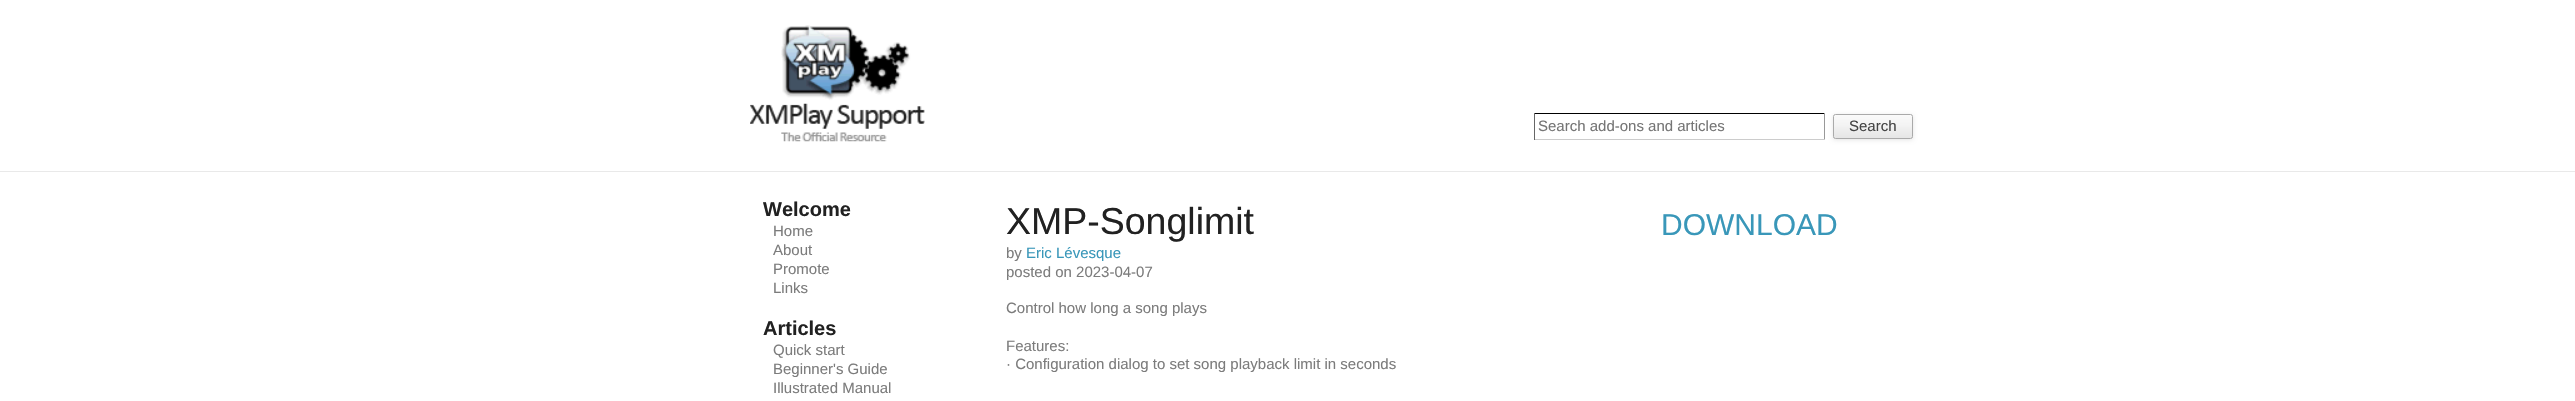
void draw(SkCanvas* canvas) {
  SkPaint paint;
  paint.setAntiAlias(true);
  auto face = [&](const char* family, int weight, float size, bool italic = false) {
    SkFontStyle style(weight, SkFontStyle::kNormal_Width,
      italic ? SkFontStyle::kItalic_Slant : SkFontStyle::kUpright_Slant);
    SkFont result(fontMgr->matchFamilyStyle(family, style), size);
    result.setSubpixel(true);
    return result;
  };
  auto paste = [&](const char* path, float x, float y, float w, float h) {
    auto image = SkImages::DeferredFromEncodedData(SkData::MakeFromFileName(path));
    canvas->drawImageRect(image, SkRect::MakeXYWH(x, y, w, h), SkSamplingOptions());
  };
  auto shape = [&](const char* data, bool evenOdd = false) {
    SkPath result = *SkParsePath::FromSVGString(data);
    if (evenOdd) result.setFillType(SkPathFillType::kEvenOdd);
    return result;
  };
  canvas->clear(0xffffffff);
  paste("img/1.png", 750, 25, 175, 117);
  {
    const struct { float x, y, w, h; SkColor color; } items[] = {
      {1534, 113, 291, 1, 0xff000000},
      {1824, 113, 1, 27, 0xff999999},
      {1534, 139, 291, 1, 0xffcccccc},
      {1534, 113, 1, 27, 0xff666666},
    };
    for (auto [x, y, w, h, color] : items) {
      paint.setColor(color);
      canvas->drawRect(SkRect::MakeXYWH(x, y, w, h), paint);
    }
  }
  paint.setColor(0x1a000000);
  paint.setMaskFilter(SkMaskFilter::MakeBlur(kNormal_SkBlurStyle, 2));
  canvas->drawRoundRect(SkRect::MakeXYWH(1833, 115, 80, 25), 2.5f, 2.5f, paint);
  paint.setMaskFilter(nullptr);
  canvas->save();
  canvas->clipPath(shape("M1835.5 114H1910.5C1912 114 1913 115 1913 116.5V136.5C1913 138 1912 139 1910.5 139H1835.5C1834 139 1833 138 1833 136.5V116.5C1833 115 1834 114 1835.5 114Z"), true);
  {
    const SkColor colors[] = {0xfffafafa, 0xfff4f4f4, 0xffe5e5e5};
    const float stops[] = {0, 0.4f, 1};
    const SkPoint ends[] = {{1873, 115}, {1873, 138}};
    paint.setShader(SkGradientShader::MakeLinear(ends, colors, stops, 3, SkTileMode::kClamp));
    paint.setAlpha(255);
  }
  canvas->drawRect(SkRect::MakeXYWH(1833, 115, 80, 23), paint);
  canvas->restore();
  paint.setStroke(true);
  paint.setStrokeWidth(1);
  paint.setShader(nullptr);
  paint.setColor(0xffaaaaaa);
  canvas->drawRoundRect(SkRect::MakeXYWH(1833.5f, 114.5f, 79, 24), 2, 2, paint);
  paint.setStroke(false);
  paint.setColor(0xffe9e9e9);
  canvas->drawRect(SkRect::MakeXYWH(0, 171, 2575, 1), paint);
  auto f0 = face("Liberation Sans", 400, 15);
  paint.setColor(0xff757575);
  canvas->drawString("Search add-ons and articles", 1538, 131, f0, paint);
  paint.setColor(0xff444444);
  canvas->drawString("Search", 1849, 131, f0, paint);
  auto f1 = face("Liberation Sans", 700, 20);
  paint.setColor(0xff212121);
  canvas->drawString("Welcome", 763, 216, f1, paint);
  paint.setColor(0xff7c7c7c);
  {
    const struct { const char* s; float x, y; } items[] = {
      {"Home", 773, 236},
      {"About", 773, 255},
      {"Promote", 773, 274},
      {"Links", 773, 293},
    };
    for (auto [s, x, y] : items) {
      canvas->drawString(s, x, y, f0, paint);
    }
  }
  paint.setColor(0xff212121);
  canvas->drawString("Articles", 763, 335, f1, paint);
  paint.setColor(0xff7c7c7c);
  {
    const struct { const char* s; float x, y; } items[] = {
      {"Quick start", 773, 355},
      {"Beginner's Guide", 773, 374},
      {"Illustrated Manual", 773, 393},
    };
    for (auto [s, x, y] : items) {
      canvas->drawString(s, x, y, f0, paint);
    }
  }
  auto f2 = face("Liberation Sans", 400, 37.5f);
  paint.setColor(0xff212121);
  canvas->drawString("XMP-Songlimit", 1006, 234, f2, paint);
  paint.setColor(0xff7c7c7c);
  canvas->drawString("by", 1006, 258, f0, paint);
  paint.setColor(0xff3997b9);
  canvas->drawString("Eric Lévesque", 1026, 258, f0, paint);
  paint.setColor(0xff7c7c7c);
  canvas->drawString("posted on 2023-04-07", 1006, 277, f0, paint);
  auto f3 = face("Liberation Sans", 400, 30);
  paint.setColor(0xff3997b9);
  canvas->drawString("DOWNLOAD", 1661, 235, f3, paint);
  paint.setColor(0xff7c7c7c);
  {
    const struct { const char* s; float x, y; } items[] = {
      {"Control how long a song plays", 1006, 313},
      {"Features:", 1006, 351},
      {"· Configuration dialog to set song playback limit in seconds", 1006, 369},
    };
    for (auto [s, x, y] : items) {
      canvas->drawString(s, x, y, f0, paint);
    }
  }
}
